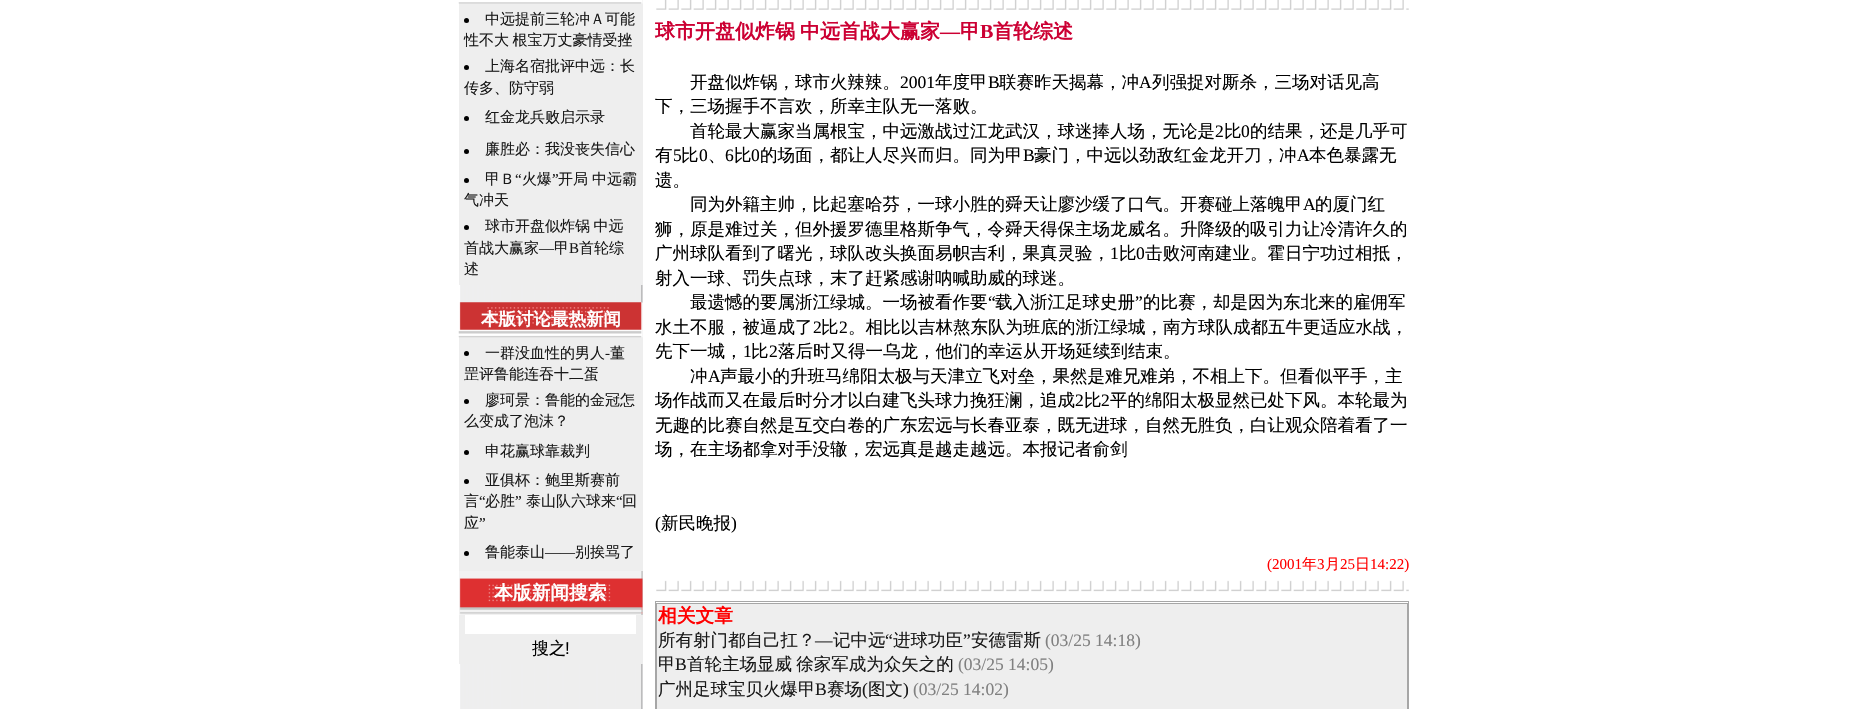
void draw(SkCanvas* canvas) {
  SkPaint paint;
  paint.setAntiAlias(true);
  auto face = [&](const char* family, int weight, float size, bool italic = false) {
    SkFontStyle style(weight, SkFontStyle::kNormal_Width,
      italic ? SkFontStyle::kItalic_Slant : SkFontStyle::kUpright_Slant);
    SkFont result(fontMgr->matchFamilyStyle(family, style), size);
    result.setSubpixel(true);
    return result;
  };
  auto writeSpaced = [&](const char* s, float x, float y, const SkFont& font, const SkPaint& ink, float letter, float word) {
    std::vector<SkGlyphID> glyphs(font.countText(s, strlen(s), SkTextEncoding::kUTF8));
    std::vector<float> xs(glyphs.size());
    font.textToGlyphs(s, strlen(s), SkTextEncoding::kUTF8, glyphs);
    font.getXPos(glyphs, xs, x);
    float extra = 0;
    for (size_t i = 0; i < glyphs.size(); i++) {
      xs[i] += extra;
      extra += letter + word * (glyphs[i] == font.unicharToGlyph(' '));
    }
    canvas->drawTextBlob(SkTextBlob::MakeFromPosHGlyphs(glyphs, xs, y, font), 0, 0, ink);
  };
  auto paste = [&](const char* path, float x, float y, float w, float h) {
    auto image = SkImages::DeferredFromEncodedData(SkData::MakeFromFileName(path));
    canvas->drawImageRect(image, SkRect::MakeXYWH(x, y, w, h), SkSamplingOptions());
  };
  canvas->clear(0xffffffff);
  paste("img/1.png", 460, 285, 183, 424);
  paint.setColor(0xffeeeeee);
  canvas->drawRect(SkRect::MakeXYWH(459, 0, 184, 285), paint);
  paste("img/2.png", 458, 0, 185, 4);
  paint.setColor(0xff000000);
  canvas->drawCircle(466.5f, 20.5f, 2.5f, paint);
  canvas->drawCircle(466.5f, 67.5f, 2.5f, paint);
  canvas->drawCircle(466.5f, 118.5f, 2.5f, paint);
  canvas->drawCircle(466.5f, 151.5f, 2.5f, paint);
  canvas->drawCircle(466.5f, 180.5f, 2.5f, paint);
  canvas->drawCircle(466.5f, 227.5f, 2.5f, paint);
  paint.setColor(0xffeeeeee);
  canvas->drawRect(SkRect::MakeXYWH(459, 303, 184, 268), paint);
  paste("img/3.png", 458, 302, 185, 36);
  paint.setColor(0xff000000);
  canvas->drawCircle(466.5f, 353.5f, 2.5f, paint);
  canvas->drawCircle(466.5f, 401.5f, 2.5f, paint);
  canvas->drawCircle(466.5f, 452.5f, 2.5f, paint);
  canvas->drawCircle(466.5f, 481.5f, 2.5f, paint);
  canvas->drawCircle(466.5f, 553.5f, 2.5f, paint);
  paste("img/4.png", 459, 571, 184, 44);
  paint.setColor(0xffeeeeee);
  canvas->drawRect(SkRect::MakeXYWH(459, 615, 184, 49), paint);
  paint.setColor(0xffffffff);
  canvas->drawRect(SkRect::MakeXYWH(465, 615, 171, 19), paint);
  paste("img/5.png", 656, 0, 753, 10);
  paste("img/6.png", 656, 580, 753, 12);
  paint.setStroke(true);
  paint.setStrokeWidth(1);
  paint.setColor(0xffa6a6a6);
  canvas->drawRect(SkRect::MakeXYWH(655.5f, 601.5f, 753, 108), paint);
  paint.setStroke(false);
  paint.setColor(0xffeeeeee);
  canvas->drawRect(SkRect::MakeXYWH(656.5f, 603.5f, 751, 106), paint);
  paint.setStroke(true);
  paint.setColor(0xffa6a6a6);
  canvas->drawRect(SkRect::MakeXYWH(656.5f, 603.5f, 751, 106), paint);
  auto f0 = face("WenQuanYi Zen Hei", 500, 15);
  paint.setStroke(false);
  paint.setColor(0xff191919);
  canvas->drawString("中远提前三轮冲Ａ可能", 485, 24, f0, paint);
  writeSpaced("性不大 根宝万丈豪情受挫", 464, 45, f0, paint, 0, -1);
  {
    const struct { const char* s; float x, y; } items[] = {
      {"上海名宿批评中远：长", 485, 71},
      {"传多、防守弱", 464, 93},
      {"红金龙兵败启示录", 485, 122},
      {"廉胜必：我没丧失信心", 485, 154},
      {"甲Ｂ", 485, 184},
    };
    for (auto [s, x, y] : items) {
      canvas->drawString(s, x, y, f0, paint);
    }
  }
  auto f1 = face("Liberation Serif", 400, 15);
  canvas->drawString("“", 515, 184, f1, paint);
  canvas->drawString("火爆", 522, 184, f0, paint);
  canvas->drawString("”", 552, 184, f1, paint);
  {
    const struct { const char* s; float x, y; } items[] = {
      {"开局", 558, 184},
      {"中远霸", 592, 184},
      {"气冲天", 464, 205},
    };
    for (auto [s, x, y] : items) {
      canvas->drawString(s, x, y, f0, paint);
    }
  }
  writeSpaced("球市开盘似炸锅 中远", 485, 231, f0, paint, 0, -1);
  canvas->drawString("首战大赢家", 464, 253, f0, paint);
  canvas->drawString("—", 539, 253, f1, paint);
  canvas->drawString("甲", 554, 253, f0, paint);
  canvas->drawString("B", 569, 253, f1, paint);
  canvas->drawString("首轮综", 579, 253, f0, paint);
  canvas->drawString("述", 464, 274, f0, paint);
  auto f2 = face("WenQuanYi Zen Hei", 700, 17.5f);
  paint.setColor(0xffffffff);
  canvas->drawString("本版讨论最热新闻", 481, 325, f2, paint);
  paint.setColor(0xff191919);
  canvas->drawString("一群没血性的男人", 485, 358, f0, paint);
  canvas->drawString("-", 605, 358, f1, paint);
  {
    const struct { const char* s; float x, y; } items[] = {
      {"董", 610, 358},
      {"罡评鲁能连吞十二蛋", 464, 379},
      {"廖珂景：鲁能的金冠怎", 485, 405},
      {"么变成了泡沫？", 464, 426},
      {"申花赢球靠裁判", 485, 456},
      {"亚俱杯：鲍里斯赛前", 485, 485},
      {"言", 464, 506},
    };
    for (auto [s, x, y] : items) {
      canvas->drawString(s, x, y, f0, paint);
    }
  }
  canvas->drawString("“", 479, 506, f1, paint);
  canvas->drawString("必胜", 485, 506, f0, paint);
  canvas->drawString("”", 515, 506, f1, paint);
  canvas->drawString("泰山队六球来", 526, 506, f0, paint);
  canvas->drawString("“", 616, 506, f1, paint);
  canvas->drawString("回", 622, 506, f0, paint);
  canvas->drawString("应", 464, 528, f0, paint);
  canvas->drawString("”", 479, 528, f1, paint);
  canvas->drawString("鲁能泰山", 485, 557, f0, paint);
  canvas->drawString("——", 545, 557, f1, paint);
  canvas->drawString("别挨骂了", 575, 557, f0, paint);
  auto f3 = face("WenQuanYi Zen Hei", 700, 18.75f);
  paint.setColor(0xffffffff);
  canvas->drawString("本版新闻搜索", 494, 599, f3, paint);
  auto f4 = face("WenQuanYi Zen Hei", 500, 17);
  paint.setColor(0xff000000);
  canvas->drawString("搜之", 532, 654, f4, paint);
  auto f5 = face("Liberation Sans", 400, 17);
  canvas->drawString("!", 565, 654, f5, paint);
  auto f6 = face("WenQuanYi Zen Hei", 700, 20);
  paint.setColor(0xffcc0033);
  writeSpaced("球市开盘似炸锅 中远首战大赢家", 655, 38, f6, paint, 0, -1);
  auto f7 = face("Liberation Serif", 700, 20);
  canvas->drawString("—", 940, 38, f7, paint);
  canvas->drawString("甲", 960, 38, f6, paint);
  canvas->drawString("B", 980, 38, f7, paint);
  canvas->drawString("首轮综述", 993, 38, f6, paint);
  auto f8 = face("WenQuanYi Zen Hei", 500, 17.5f);
  paint.setColor(0xff000000);
  canvas->drawString("开盘似炸锅，球市火辣辣。", 690, 88, f8, paint);
  auto f9 = face("Liberation Serif", 400, 17.5f);
  canvas->drawString("2001", 900, 88, f9, paint);
  canvas->drawString("年度甲", 935, 88, f8, paint);
  canvas->drawString("B", 988, 88, f9, paint);
  canvas->drawString("联赛昨天揭幕，冲", 999, 88, f8, paint);
  canvas->drawString("A", 1139, 88, f9, paint);
  {
    const struct { const char* s; float x, y; } items[] = {
      {"列强捉对厮杀，三场对话见高", 1152, 88},
      {"下，三场握手不言欢，所幸主队无一落败。", 655, 112},
      {"首轮最大赢家当属根宝，中远激战过江龙武汉，球迷捧人场，无论是", 690, 137},
    };
    for (auto [s, x, y] : items) {
      canvas->drawString(s, x, y, f8, paint);
    }
  }
  canvas->drawString("2", 1215, 137, f9, paint);
  canvas->drawString("比", 1224, 137, f8, paint);
  canvas->drawString("0", 1241, 137, f9, paint);
  canvas->drawString("的结果，还是几乎可", 1250, 137, f8, paint);
  canvas->drawString("有", 655, 161, f8, paint);
  canvas->drawString("5", 673, 161, f9, paint);
  canvas->drawString("比", 681, 161, f8, paint);
  canvas->drawString("0", 699, 161, f9, paint);
  canvas->drawString("6", 725, 161, f9, paint);
  canvas->drawString("比", 734, 161, f8, paint);
  canvas->drawString("0", 751, 161, f9, paint);
  canvas->drawString("的场面，都让人尽兴而归。同为甲", 760, 161, f8, paint);
  canvas->drawString("B", 1023, 161, f9, paint);
  canvas->drawString("豪门，中远以劲敌红金龙开刀，冲", 1034, 161, f8, paint);
  canvas->drawString("A", 1297, 161, f9, paint);
  {
    const struct { const char* s; float x, y; } items[] = {
      {"本色暴露无", 1309, 161},
      {"、", 708, 161},
      {"遗。", 655, 186},
      {"同为外籍主帅，比起塞哈芬，一球小胜的舜天让廖沙缓了口气。开赛碰上落魄甲", 690, 210},
    };
    for (auto [s, x, y] : items) {
      canvas->drawString(s, x, y, f8, paint);
    }
  }
  canvas->drawString("A", 1303, 210, f9, paint);
  {
    const struct { const char* s; float x, y; } items[] = {
      {"的厦门红", 1315, 210},
      {"狮，原是难过关，但外援罗德里格斯争气，令舜天得保主场龙威名。升降级的吸引力让冷清许久的", 655, 235},
      {"广州球队看到了曙光，球队改头换面易帜吉利，果真灵验，", 655, 259},
    };
    for (auto [s, x, y] : items) {
      canvas->drawString(s, x, y, f8, paint);
    }
  }
  canvas->drawString("1", 1110, 259, f9, paint);
  canvas->drawString("比", 1119, 259, f8, paint);
  canvas->drawString("0", 1136, 259, f9, paint);
  {
    const struct { const char* s; float x, y; } items[] = {
      {"击败河南建业。霍日宁功过相抵，", 1145, 259},
      {"射入一球、罚失点球，末了赶紧感谢呐喊助威的球迷。", 655, 284},
      {"最遗憾的要属浙江绿城。一场被看作要", 690, 308},
    };
    for (auto [s, x, y] : items) {
      canvas->drawString(s, x, y, f8, paint);
    }
  }
  canvas->drawString("“", 988, 308, f9, paint);
  canvas->drawString("载入浙江足球史册", 995, 308, f8, paint);
  canvas->drawString("”", 1135, 308, f9, paint);
  canvas->drawString("的比赛，却是因为东北来的雇佣军", 1143, 308, f8, paint);
  canvas->drawString("水土不服，被逼成了", 655, 333, f8, paint);
  canvas->drawString("2", 813, 333, f9, paint);
  canvas->drawString("比", 821, 333, f8, paint);
  canvas->drawString("2", 839, 333, f9, paint);
  canvas->drawString("。相比以吉林熬东队为班底的浙江绿城，南方球队成都五牛更适应水战，", 848, 333, f8, paint);
  canvas->drawString("先下一城，", 655, 357, f8, paint);
  canvas->drawString("1", 743, 357, f9, paint);
  canvas->drawString("比", 751, 357, f8, paint);
  canvas->drawString("2", 769, 357, f9, paint);
  canvas->drawString("落后时又得一乌龙，他们的幸运从开场延续到结束。", 778, 357, f8, paint);
  canvas->drawString("冲", 690, 382, f8, paint);
  canvas->drawString("A", 708, 382, f9, paint);
  canvas->drawString("声最小的升班马绵阳太极与天津立飞对垒，果然是难兄难弟，不相上下。但看似平手，主", 720, 382, f8, paint);
  canvas->drawString("场作战而又在最后时分才以白建飞头球力挽狂澜，追成", 655, 406, f8, paint);
  canvas->drawString("2", 1075, 406, f9, paint);
  canvas->drawString("比", 1084, 406, f8, paint);
  canvas->drawString("2", 1101, 406, f9, paint);
  {
    const struct { const char* s; float x, y; } items[] = {
      {"平的绵阳太极显然已处下风。本轮最为", 1110, 406},
      {"无趣的比赛自然是互交白卷的广东宏远与长春亚泰，既无进球，自然无胜负，白让观众陪着看了一", 655, 431},
      {"场，在主场都拿对手没辙，宏远真是越走越远。本报记者俞剑", 655, 455},
    };
    for (auto [s, x, y] : items) {
      canvas->drawString(s, x, y, f8, paint);
    }
  }
  canvas->drawString("(", 655, 529, f9, paint);
  canvas->drawString("新民晚报", 661, 529, f8, paint);
  canvas->drawString(")", 731, 529, f9, paint);
  paint.setColor(0xffff0000);
  canvas->drawString("(2001", 1267, 569, f1, paint);
  canvas->drawString("年", 1302, 569, f0, paint);
  canvas->drawString("3", 1317, 569, f1, paint);
  canvas->drawString("月", 1325, 569, f0, paint);
  canvas->drawString("25", 1340, 569, f1, paint);
  canvas->drawString("日", 1355, 569, f0, paint);
  canvas->drawString("14:22)", 1370, 569, f1, paint);
  canvas->drawString("相关文章", 658, 622, f3, paint);
  paint.setColor(0xff191919);
  canvas->drawString("所有射门都自己扛？", 658, 646, f8, paint);
  canvas->drawString("“", 885, 646, f9, paint);
  canvas->drawString("进球功臣", 893, 646, f8, paint);
  canvas->drawString("”", 963, 646, f9, paint);
  canvas->drawString("安德雷斯", 971, 646, f8, paint);
  paint.setColor(0xff808080);
  canvas->drawString("(03/25 14:18)", 1045, 646, f9, paint);
  paint.setColor(0xff191919);
  canvas->drawString("—", 815, 646, f9, paint);
  canvas->drawString("记中远", 833, 646, f8, paint);
  canvas->drawString("甲", 658, 670, f8, paint);
  canvas->drawString("B", 675, 670, f9, paint);
  writeSpaced("首轮主场显威 徐家军成为众矢之的", 687, 670, f8, paint, 0, -1);
  paint.setColor(0xff808080);
  canvas->drawString("(03/25 14:05)", 958, 670, f9, paint);
  paint.setColor(0xff191919);
  canvas->drawString("广州足球宝贝火爆甲", 658, 695, f8, paint);
  canvas->drawString("B", 815, 695, f9, paint);
  canvas->drawString("赛场", 827, 695, f8, paint);
  canvas->drawString("(", 862, 695, f9, paint);
  canvas->drawString("图文", 868, 695, f8, paint);
  canvas->drawString(")", 903, 695, f9, paint);
  paint.setColor(0xff808080);
  canvas->drawString("(03/25 14:02)", 913, 695, f9, paint);
}
